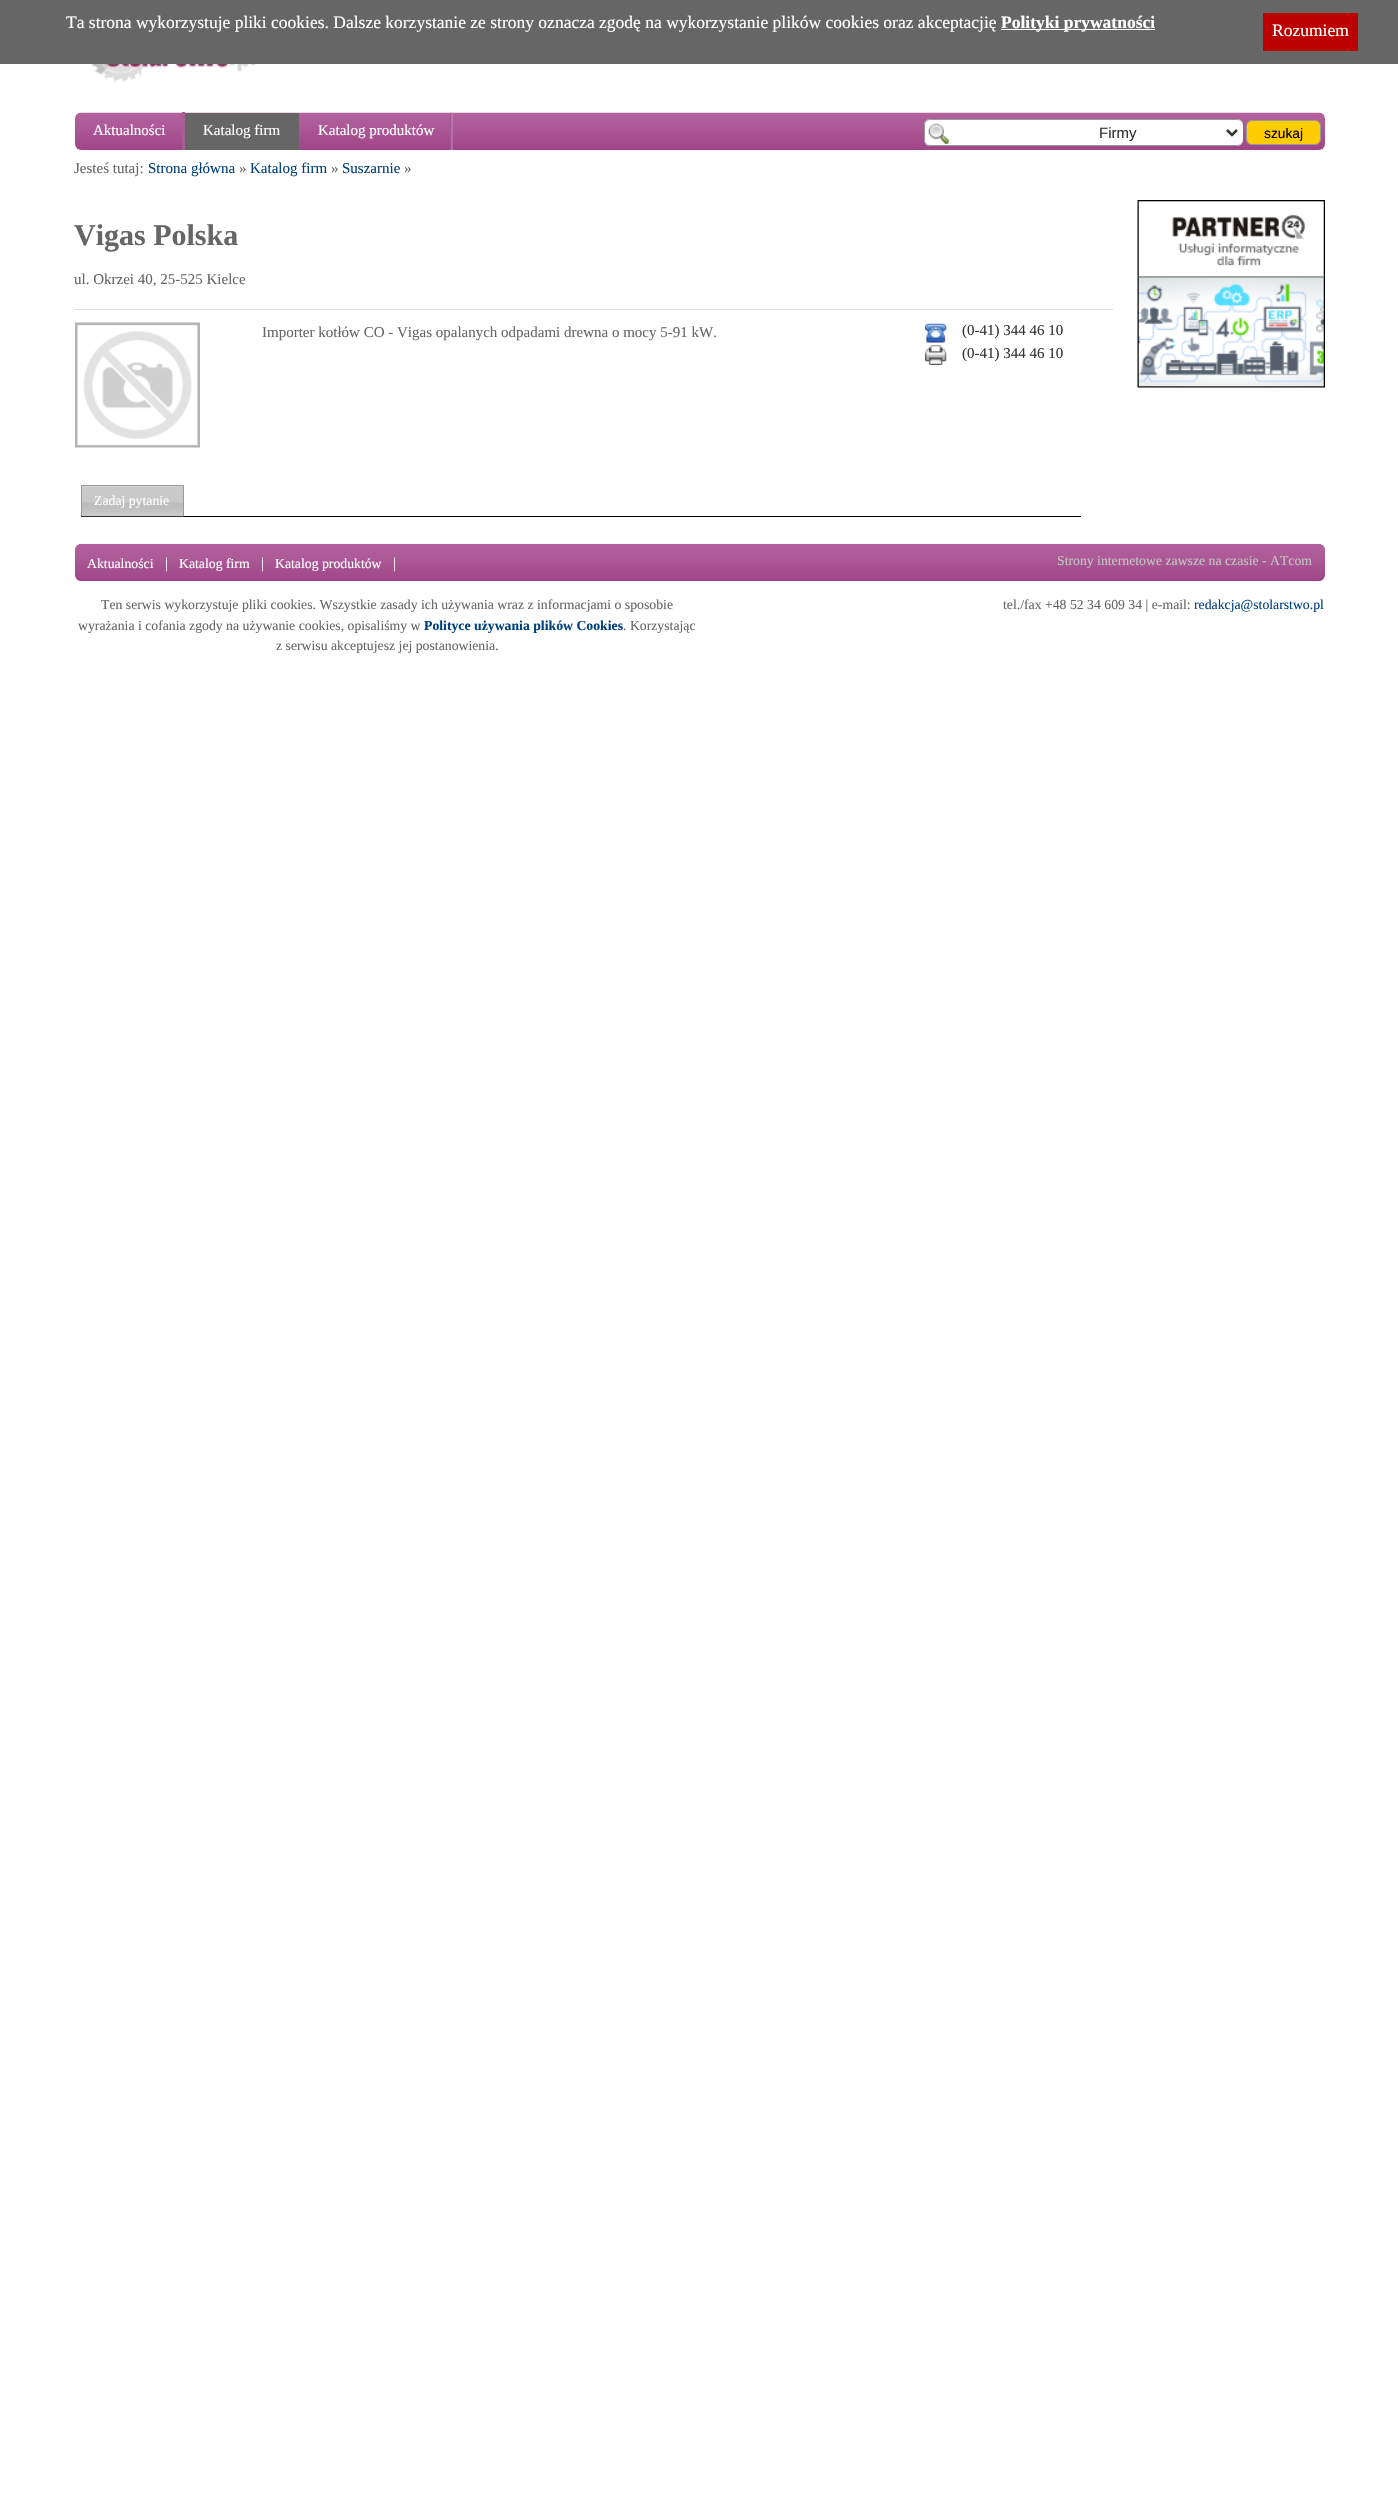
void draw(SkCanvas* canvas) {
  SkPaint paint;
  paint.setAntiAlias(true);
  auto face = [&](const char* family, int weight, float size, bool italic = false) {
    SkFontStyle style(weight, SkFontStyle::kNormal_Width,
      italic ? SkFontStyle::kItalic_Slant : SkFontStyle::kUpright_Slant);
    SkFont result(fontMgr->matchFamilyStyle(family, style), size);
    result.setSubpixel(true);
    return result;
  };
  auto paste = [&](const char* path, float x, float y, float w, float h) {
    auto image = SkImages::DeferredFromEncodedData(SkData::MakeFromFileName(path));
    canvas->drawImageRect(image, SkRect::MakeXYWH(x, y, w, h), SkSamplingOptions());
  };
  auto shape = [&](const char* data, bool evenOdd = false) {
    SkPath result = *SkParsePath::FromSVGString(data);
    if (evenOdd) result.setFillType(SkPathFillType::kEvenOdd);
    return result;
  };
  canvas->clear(0xffffffff);
  {
    const struct { float x, y, w, h; SkColor color; } items[] = {
      {0, 0, 1398, 64, 0xff666666},
      {1001, 29, 154, 1, 0xffffffff},
      {1263, 13, 95, 38, 0xffbb0000},
    };
    for (auto [x, y, w, h, color] : items) {
      paint.setColor(color);
      canvas->drawRect(SkRect::MakeXYWH(x, y, w, h), paint);
    }
  }
  paste("img/1.png", 87, 64, 169, 19);
  paste("img/2.png", 75, 112, 1250, 38);
  paint.setColor(0xffa85e94);
  canvas->drawRect(SkRect::MakeXYWH(182, 112, 3, 38), paint);
  paint.setColor(0xff666666);
  canvas->drawRect(SkRect::MakeXYWH(185, 113, 114, 37), paint);
  paste("img/3.png", 450, 112, 3, 38);
  paint.setColor(0xffffffff);
  canvas->drawRoundRect(SkRect::MakeXYWH(924, 119, 319, 27), 6, 6, paint);
  paste("img/4.png", 928, 123, 21, 21);
  paint.setStroke(true);
  paint.setStrokeWidth(1);
  paint.setColor(0xff999999);
  canvas->drawRoundRect(SkRect::MakeXYWH(924.5f, 119.5f, 318, 26), 5.5f, 5.5f, paint);
  paint.setStroke(false);
  paint.setColor(0xffffffff);
  canvas->drawRoundRect(SkRect::MakeXYWH(1093, 120, 150, 25), 6, 6, paint);
  paint.setStroke(true);
  paint.setStrokeWidth(2.5f);
  paint.setColor(0xff333333);
  canvas->drawPath(shape("M1227 130L1232 135L1237 130"), paint);
  paint.setStroke(false);
  paint.setColor(0xffffcc00);
  canvas->drawRoundRect(SkRect::MakeXYWH(1246.5f, 120.5f, 74, 24), 5.5f, 5.5f, paint);
  paint.setStroke(true);
  paint.setStrokeWidth(1);
  paint.setColor(0xff999999);
  canvas->drawRoundRect(SkRect::MakeXYWH(1246.5f, 120.5f, 74, 24), 5.5f, 5.5f, paint);
  paint.setStroke(false);
  paint.setColor(0xffdddddd);
  canvas->drawRect(SkRect::MakeXYWH(75, 309, 1038, 1), paint);
  paste("img/5.png", 75, 322, 125, 126);
  paste("img/6.png", 925, 323, 22, 20);
  paste("img/7.png", 925, 345, 22, 20);
  paint.setColor(0xff000000);
  canvas->drawRect(SkRect::MakeXYWH(81, 516, 1000, 1), paint);
  paste("img/8.png", 81, 486, 103, 31);
  {
    const struct { float x, y, w, h; SkColor color; } items[] = {
      {81, 485, 103, 1, 0xff999999},
      {183, 485, 1, 31, 0xff999999},
      {81, 485, 1, 31, 0xff999999},
    };
    for (auto [x, y, w, h, color] : items) {
      paint.setColor(color);
      canvas->drawRect(SkRect::MakeXYWH(x, y, w, h), paint);
    }
  }
  paste("img/9.png", 1137, 200, 188, 188);
  paste("img/10.png", 75, 543, 1250, 39);
  auto f0 = face("Liberation Serif", 400, 17.5f);
  paint.setColor(0xffffffff);
  canvas->drawString("Ta strona wykorzystuje pliki cookies. Dalsze korzystanie ze strony oznacza zgodę na wykorzystanie plików cookies oraz akceptacjię", 66, 28, f0, paint);
  auto f1 = face("Liberation Serif", 700, 17.5f);
  canvas->drawString("Polityki prywatności", 1001, 28, f1, paint);
  canvas->drawString("Rozumiem", 1272, 36, f0, paint);
  auto f2 = face("Liberation Serif", 400, 15);
  {
    const struct { const char* s; float x, y; } items[] = {
      {"Aktualności", 93, 135},
      {"Katalog firm", 203, 135},
      {"Katalog produktów", 318, 135},
    };
    for (auto [s, x, y] : items) {
      canvas->drawString(s, x, y, f2, paint);
    }
  }
  auto f3 = face("Liberation Sans", 400, 15);
  paint.setColor(0xff333333);
  canvas->drawString("Firmy", 1099, 138, f3, paint);
  auto f4 = face("Liberation Sans", 400, 13.75f);
  paint.setColor(0xff000000);
  canvas->drawString("szukaj", 1264, 138, f4, paint);
  paint.setColor(0xff666666);
  canvas->drawString("Jesteś tutaj:", 74, 173, f2, paint);
  paint.setColor(0xff004080);
  canvas->drawString("Strona główna", 148, 173, f2, paint);
  paint.setColor(0xff666666);
  canvas->drawString("»", 239, 173, f2, paint);
  paint.setColor(0xff004080);
  canvas->drawString("Katalog firm", 250, 173, f2, paint);
  paint.setColor(0xff666666);
  canvas->drawString("»", 331, 173, f2, paint);
  paint.setColor(0xff004080);
  canvas->drawString("Suszarnie", 342, 173, f2, paint);
  paint.setColor(0xff666666);
  canvas->drawString("»", 404, 173, f2, paint);
  auto f5 = face("Liberation Serif", 700, 30);
  canvas->drawString("Vigas Polska", 74, 245, f5, paint);
  canvas->drawString("ul. Okrzei 40, 25-525 Kielce", 74, 284, f2, paint);
  canvas->drawString("Importer kotłów CO - Vigas opalanych odpadami drewna o mocy 5-91 kW.", 262, 337, f2, paint);
  paint.setColor(0xff333333);
  canvas->drawString("(0-41) 344 46 10", 962, 335, f2, paint);
  canvas->drawString("(0-41) 344 46 10", 962, 358, f2, paint);
  auto f6 = face("Liberation Serif", 400, 13.75f);
  paint.setColor(0xffffffff);
  canvas->drawString("Zadaj pytanie", 94, 505, f6, paint);
  canvas->drawString("Aktualności", 87, 568, f6, paint);
  canvas->drawString("|", 165, 568, f2, paint);
  canvas->drawString("Katalog firm", 179, 568, f6, paint);
  canvas->drawString("|", 261, 568, f2, paint);
  canvas->drawString("Katalog produktów", 275, 568, f6, paint);
  canvas->drawString("|", 393, 568, f2, paint);
  paint.setColor(0xffc3c3c3);
  canvas->drawString("Strony internetowe zawsze na czasie - ATcom", 1057, 565, f6, paint);
  paint.setColor(0xff666666);
  canvas->drawString("Ten serwis wykorzystuje pliki cookies. Wszystkie zasady ich używania wraz z informacjami o sposobie", 101, 609, f6, paint);
  canvas->drawString("wyrażania i cofania zgody na używanie cookies, opisaliśmy w", 78, 630, f6, paint);
  auto f7 = face("Liberation Serif", 700, 13.75f);
  paint.setColor(0xff004080);
  canvas->drawString("Polityce używania plików Cookies", 424, 630, f7, paint);
  paint.setColor(0xff666666);
  {
    const struct { const char* s; float x, y; } items[] = {
      {". Korzystając", 623, 630},
      {"z serwisu akceptujesz jej postanowienia.", 276, 650},
      {"tel./fax +48 52 34 609 34 | e-mail:", 1003, 609},
    };
    for (auto [s, x, y] : items) {
      canvas->drawString(s, x, y, f6, paint);
    }
  }
  paint.setColor(0xff004080);
  canvas->drawString("redakcja@stolarstwo.pl", 1194, 609, f6, paint);
}
